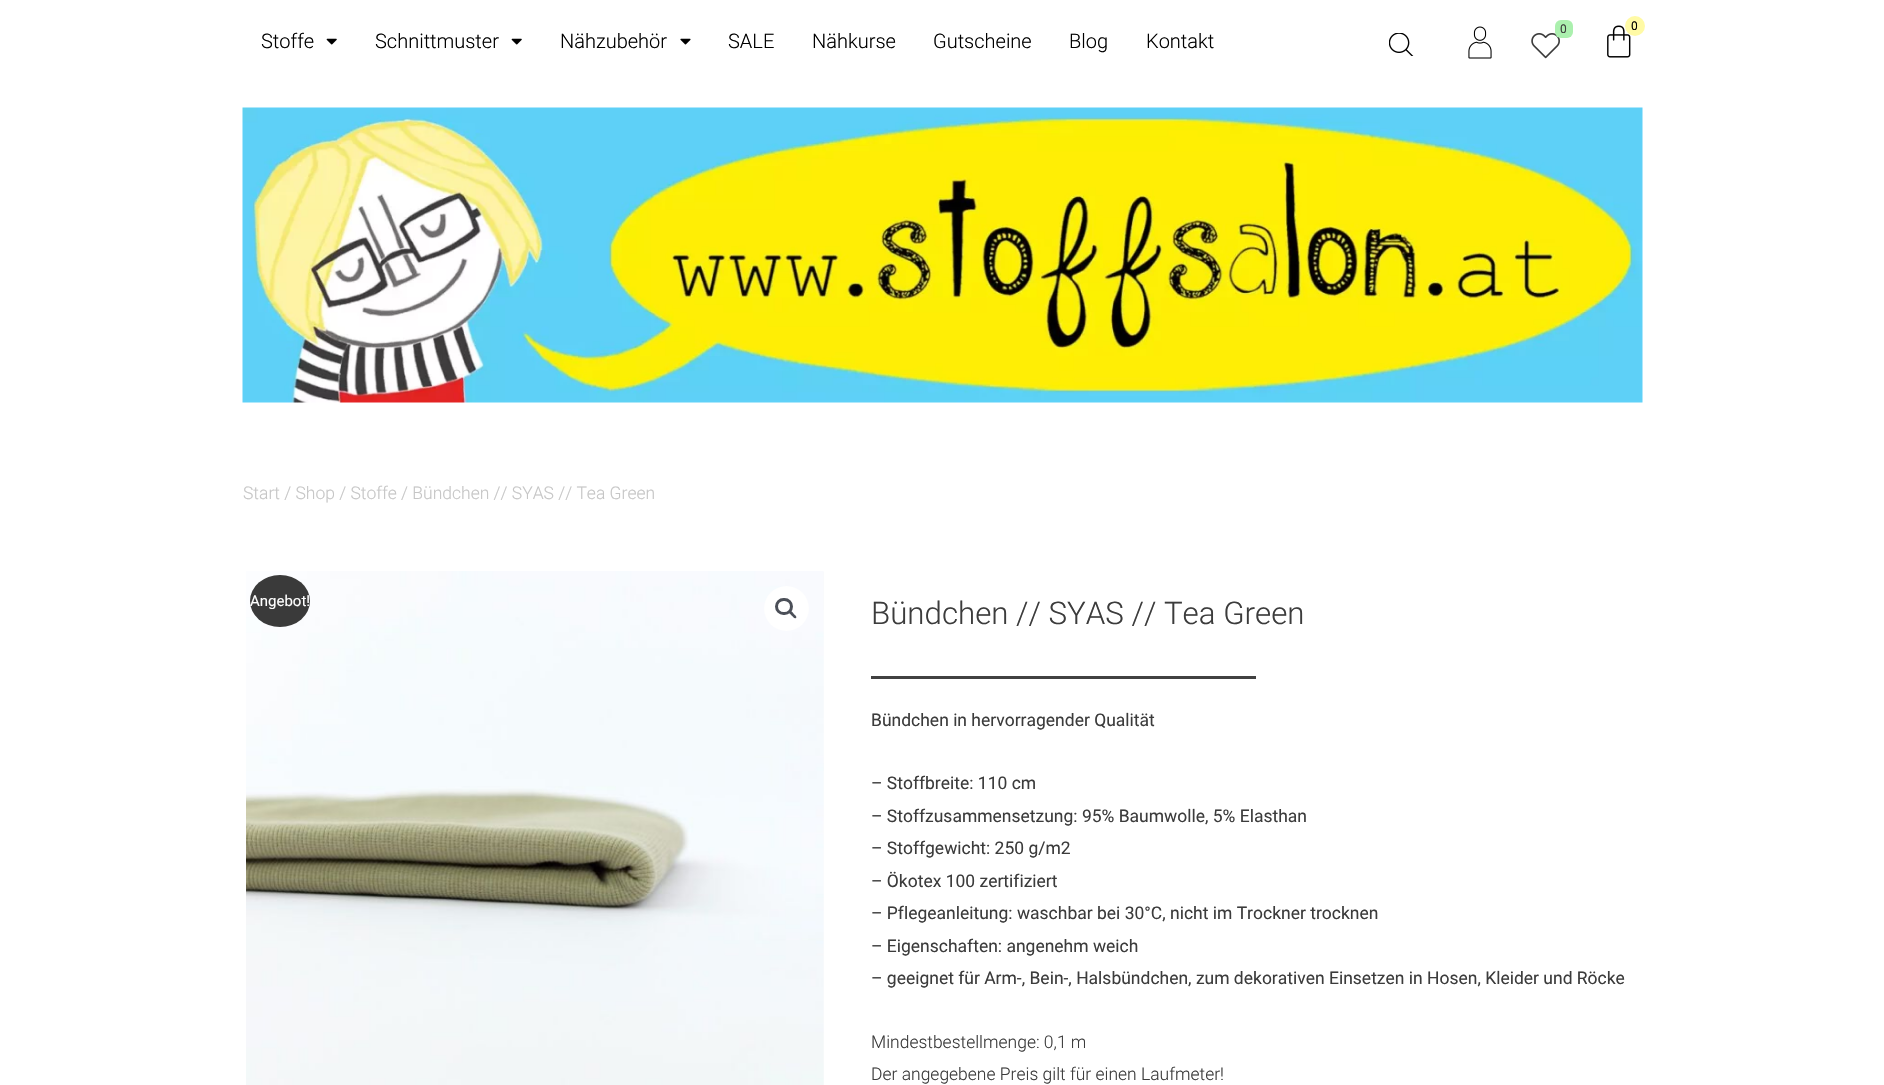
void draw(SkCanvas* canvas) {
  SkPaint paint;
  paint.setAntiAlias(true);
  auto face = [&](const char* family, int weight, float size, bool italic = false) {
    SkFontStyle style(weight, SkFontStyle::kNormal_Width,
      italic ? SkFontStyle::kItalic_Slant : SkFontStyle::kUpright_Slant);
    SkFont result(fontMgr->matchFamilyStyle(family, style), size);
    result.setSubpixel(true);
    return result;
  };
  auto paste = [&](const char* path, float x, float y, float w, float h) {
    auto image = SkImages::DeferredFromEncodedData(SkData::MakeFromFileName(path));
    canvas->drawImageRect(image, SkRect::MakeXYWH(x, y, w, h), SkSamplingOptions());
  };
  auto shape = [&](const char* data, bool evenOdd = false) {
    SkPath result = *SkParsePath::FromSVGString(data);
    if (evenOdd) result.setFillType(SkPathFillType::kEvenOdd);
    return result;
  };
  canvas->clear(0xffffffff);
  paste("img/1.png", 1389, 33, 25, 23);
  paste("img/2.png", 1468, 26, 24, 33);
  paste("img/3.png", 1531, 33, 29, 26);
  paint.setColor(0xffabf0ae);
  canvas->drawRoundRect(SkRect::MakeXYWH(1555, 20, 18, 18), 6, 6, paint);
  paste("img/4.png", 1607, 25, 24, 33);
  paint.setColor(0xfffffaa5);
  canvas->drawCircle(1635, 26, 10, paint);
  paste("img/5.png", 326, 38, 11, 7);
  paste("img/5.png", 511, 38, 11, 7);
  paste("img/6.png", 680, 38, 11, 7);
  paste("img/7.png", 242, 107, 1401, 296);
  paste("img/9.png", 823, 572, 1, 513);
  paste("img/8.png", 246, 571, 578, 514);
  paint.setColor(0xffffffff);
  canvas->drawCircle(786.5f, 608.5f, 22.5f, paint);
  paint.setStroke(true);
  paint.setStrokeWidth(3);
  paint.setColor(0xff4b4f58);
  canvas->drawRoundRect(SkRect::MakeXYWH(776.5f, 599.5f, 15, 14), 7, 7, paint);
  paint.setStroke(false);
  canvas->drawPath(shape("M789 611C790.5 609.5 792.5 612.5 793.5 613.5C794 614.5 797.5 616.5 796 618C794.5 619.5 792.5 616 791.5 615.5C791 614.5 787.5 612.5 789 611Z"), paint);
  paint.setColor(0xff3a3a3a);
  canvas->drawOval(SkRect::MakeXYWH(250, 575, 60, 52), paint);
  paint.setColor(0xff414141);
  canvas->drawRect(SkRect::MakeXYWH(871, 676, 385, 3), paint);
  auto f0 = face("Roboto", 400, 12);
  paint.setColor(0xff3c3c3c);
  canvas->drawString("0", 1560, 33, f0, paint);
  paint.setColor(0xff000000);
  canvas->drawString("0", 1631, 30, f0, paint);
  auto f1 = face("Roboto", 300, 20);
  {
    const struct { const char* s; float x, y; } items[] = {
      {"Stoffe", 261, 48},
      {"Schnittmuster", 375, 48},
      {"Nähzubehör", 560, 48},
      {"SALE", 728, 48},
      {"Nähkurse", 812, 48},
      {"Gutscheine", 933, 48},
      {"Blog", 1069, 48},
      {"Kontakt", 1146, 48},
    };
    for (auto [s, x, y] : items) {
      canvas->drawString(s, x, y, f1, paint);
    }
  }
  auto f2 = face("Roboto", 300, 17.5f);
  paint.setColor(0xffc6c6c6);
  canvas->drawString("Start / Shop / Stoffe / Bündchen // SYAS // Tea Green", 243, 499, f2, paint);
  auto f3 = face("Roboto", 400, 15);
  paint.setColor(0xffffffff);
  canvas->drawString("Angebot!", 250, 606, f3, paint);
  auto f4 = face("Roboto", 300, 31.25f);
  paint.setColor(0xff3c3c3c);
  canvas->drawString("Bündchen // SYAS // Tea Green", 871, 624, f4, paint);
  auto f5 = face("Roboto", 400, 17.5f);
  {
    const struct { const char* s; float x, y; } items[] = {
      {"Bündchen in hervorragender Qualität", 871, 726},
      {"– Stoffbreite: 110 cm", 871, 789},
      {"– Stoffzusammensetzung: 95% Baumwolle, 5% Elasthan", 871, 822},
      {"– Stoffgewicht: 250 g/m2", 871, 854},
      {"– Ökotex 100 zertifiziert", 871, 887},
      {"– Pflegeanleitung: waschbar bei 30°C, nicht im Trockner trocknen", 871, 919},
      {"– Eigenschaften: angenehm weich", 871, 952},
      {"– geeignet für Arm-, Bein-, Halsbündchen, zum dekorativen Einsetzen in Hosen, Kleider und Röcke", 871, 984},
    };
    for (auto [s, x, y] : items) {
      canvas->drawString(s, x, y, f5, paint);
    }
  }
  auto f6 = face("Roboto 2", 300, 17.5f);
  canvas->drawString("Mindestbestellmenge: 0,1 m", 871, 1048, f6, paint);
  canvas->drawString("Der angegebene Preis gilt für einen Laufmeter!", 871, 1080, f6, paint);
}
